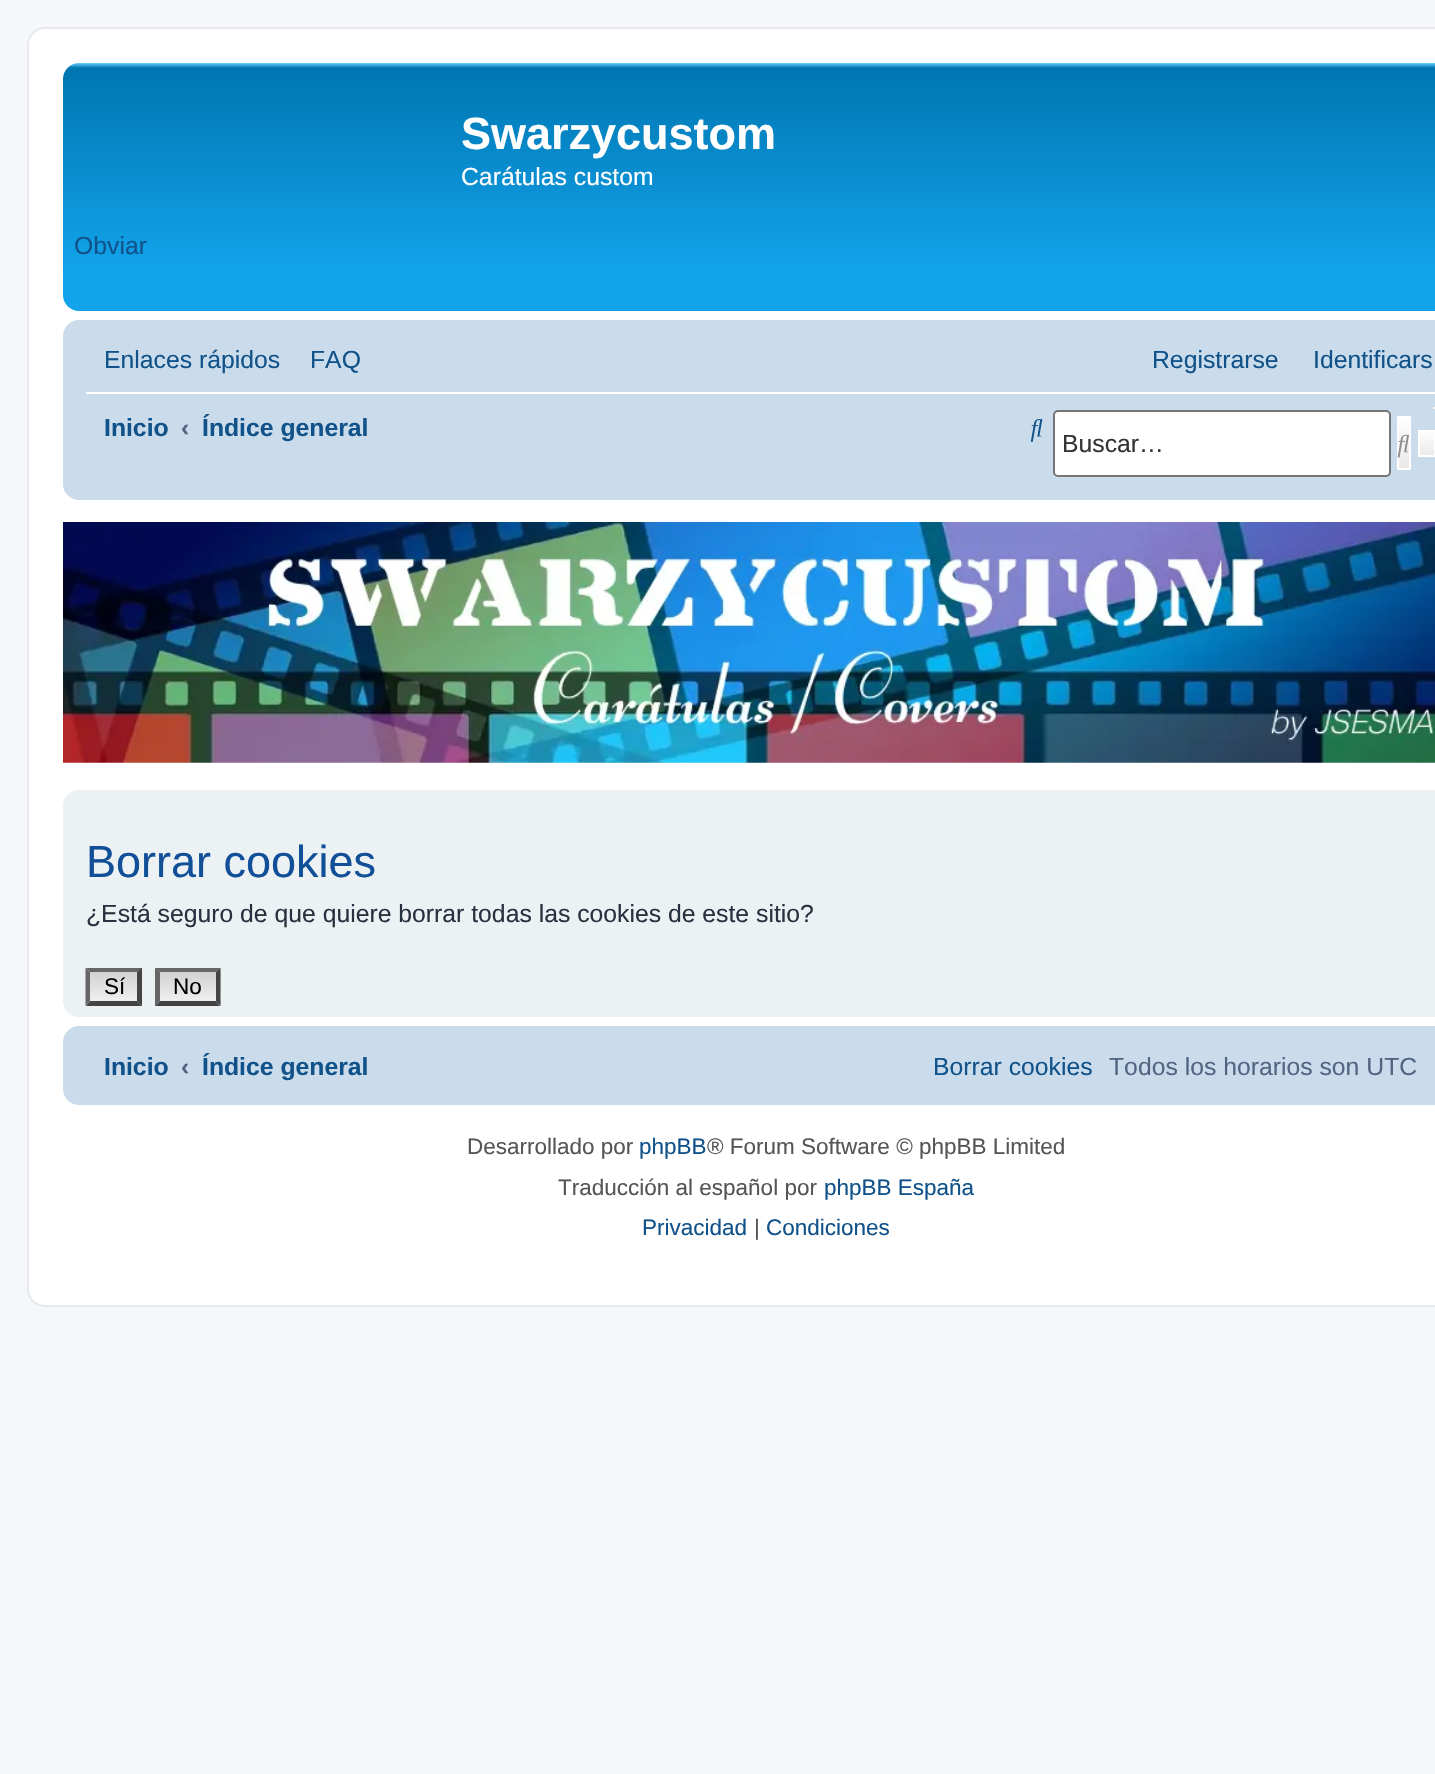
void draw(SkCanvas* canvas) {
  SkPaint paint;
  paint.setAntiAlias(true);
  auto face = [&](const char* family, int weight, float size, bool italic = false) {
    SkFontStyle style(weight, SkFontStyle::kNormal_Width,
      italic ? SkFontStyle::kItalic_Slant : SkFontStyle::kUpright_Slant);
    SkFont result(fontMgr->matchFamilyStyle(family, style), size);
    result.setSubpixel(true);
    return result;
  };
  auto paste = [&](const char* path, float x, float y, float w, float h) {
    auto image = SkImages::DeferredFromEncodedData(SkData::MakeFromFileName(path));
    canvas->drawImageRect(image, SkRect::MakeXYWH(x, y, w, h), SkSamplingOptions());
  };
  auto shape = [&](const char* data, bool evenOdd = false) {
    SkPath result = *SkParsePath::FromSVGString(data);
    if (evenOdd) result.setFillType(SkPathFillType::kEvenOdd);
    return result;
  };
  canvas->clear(0xfff5f7fa);
  paint.setColor(0xffffffff);
  canvas->drawRoundRect(SkRect::MakeXYWH(28, 28, 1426, 1278), 17, 17, paint);
  paint.setStroke(true);
  paint.setStrokeWidth(2);
  paint.setColor(0xffe6e9ed);
  canvas->drawRoundRect(SkRect::MakeXYWH(28, 28, 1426, 1278), 17, 17, paint);
  paint.setStroke(false);
  {
    const SkColor colors[] = {0xff6aceff, 0xff0076b1, 0xff12a3eb, 0xff12a3eb};
    const float stops[] = {0, 0.02f, 0.84f, 1};
    const SkPoint ends[] = {{766, 63}, {766, 311}};
    paint.setShader(SkGradientShader::MakeLinear(ends, colors, stops, 4, SkTileMode::kClamp));
    paint.setAlpha(255);
  }
  canvas->drawRoundRect(SkRect::MakeXYWH(63, 63, 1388, 248), 16, 16, paint);
  paint.setShader(nullptr);
  paint.setColor(0xffcadceb);
  canvas->drawRoundRect(SkRect::MakeXYWH(63, 320, 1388, 180), 16, 16, paint);
  paint.setColor(0xffffffff);
  canvas->drawRect(SkRect::MakeXYWH(86, 392, 1349, 2), paint);
  paste("img/1.png", 1030, 419, 13, 23);
  canvas->drawRect(SkRect::MakeXYWH(1433, 407, 2, 2), paint);
  {
    const SkColor colors[] = {0xffffffff, 0xffe9e9e9};
    const float stops[] = {0, 1};
    const SkPoint ends[] = {{1404, 416}, {1404, 470}};
    paint.setShader(SkGradientShader::MakeLinear(ends, colors, stops, 2, SkTileMode::kClamp));
    paint.setAlpha(255);
  }
  canvas->drawRect(SkRect::MakeXYWH(1399, 418, 10, 50), paint);
  paint.setStroke(true);
  paint.setShader(nullptr);
  paint.setColor(0xffffffff);
  canvas->drawRect(SkRect::MakeXYWH(1398, 417, 12, 52), paint);
  paste("img/2.png", 1397, 434, 12, 24);
  paint.setStroke(false);
  {
    const SkColor colors[] = {0xffffffff, 0xffe9e9e9};
    const float stops[] = {0, 1};
    const SkPoint ends[] = {{1427, 430}, {1427, 457}};
    paint.setShader(SkGradientShader::MakeLinear(ends, colors, stops, 2, SkTileMode::kClamp));
    paint.setAlpha(255);
  }
  canvas->drawRect(SkRect::MakeXYWH(1420, 432, 14, 23), paint);
  paint.setStroke(true);
  paint.setShader(nullptr);
  paint.setColor(0xffffffff);
  canvas->drawRect(SkRect::MakeXYWH(1419, 431, 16, 25), paint);
  paint.setStroke(false);
  canvas->drawRoundRect(SkRect::MakeXYWH(1054, 411, 336, 65), 4, 4, paint);
  paint.setStroke(true);
  paint.setColor(0xff767676);
  canvas->drawRoundRect(SkRect::MakeXYWH(1054, 411, 336, 65), 4, 4, paint);
  paste("img/3.png", 63, 522, 1372, 241);
  paint.setStroke(false);
  paint.setColor(0xffecf1f3);
  canvas->drawRoundRect(SkRect::MakeXYWH(63, 790, 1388, 227), 16, 16, paint);
  {
    const SkColor colors[] = {0xffd2d2d2, 0xffefefef};
    const float stops[] = {0, 1};
    const SkPoint ends[] = {{114, 972}, {114, 1001}};
    paint.setShader(SkGradientShader::MakeLinear(ends, colors, stops, 2, SkTileMode::kClamp));
    paint.setAlpha(255);
  }
  canvas->drawRect(SkRect::MakeXYWH(90, 972, 47, 29), paint);
  {
    const SkColor colors[] = {0xffd2d2d2, 0xffefefef};
    const float stops[] = {0, 1};
    const SkPoint ends[] = {{114, 1001}, {114, 1031}};
    paint.setShader(SkGradientShader::MakeLinear(ends, colors, stops, 2, SkTileMode::kClamp));
    paint.setAlpha(255);
  }
  canvas->drawRect(SkRect::MakeXYWH(86, 1001, 56, 5), paint);
  paint.setShader(nullptr);
  paint.setColor(0xff666666);
  canvas->drawPath(shape("M86 968H142L137 972H90Z"), paint);
  paint.setColor(0xff444444);
  canvas->drawPath(shape("M142 967.5V1006L137 1001V972Z"), paint);
  canvas->drawPath(shape("M142 1006H86L90 1001H137Z"), paint);
  paint.setColor(0xff666666);
  canvas->drawPath(shape("M85.5 1006V967.5L90 972V1001Z"), paint);
  {
    const SkColor colors[] = {0xffd2d2d2, 0xffefefef};
    const float stops[] = {0, 1};
    const SkPoint ends[] = {{188, 943}, {188, 972}};
    paint.setShader(SkGradientShader::MakeLinear(ends, colors, stops, 2, SkTileMode::kClamp));
    paint.setAlpha(255);
  }
  canvas->drawRect(SkRect::MakeXYWH(155, 968, 66, 4), paint);
  {
    const SkColor colors[] = {0xffd2d2d2, 0xffefefef};
    const float stops[] = {0, 1};
    const SkPoint ends[] = {{188, 972}, {188, 1001}};
    paint.setShader(SkGradientShader::MakeLinear(ends, colors, stops, 2, SkTileMode::kClamp));
    paint.setAlpha(255);
  }
  canvas->drawRect(SkRect::MakeXYWH(160, 972, 61, 29), paint);
  {
    const SkColor colors[] = {0xffd2d2d2, 0xffefefef};
    const float stops[] = {0, 1};
    const SkPoint ends[] = {{188, 1001}, {188, 1031}};
    paint.setShader(SkGradientShader::MakeLinear(ends, colors, stops, 2, SkTileMode::kClamp));
    paint.setAlpha(255);
  }
  canvas->drawRect(SkRect::MakeXYWH(155, 1001, 66, 5), paint);
  paint.setShader(nullptr);
  paint.setColor(0xff666666);
  canvas->drawPath(shape("M155 968H220L216 972H160Z"), paint);
  paint.setColor(0xff444444);
  canvas->drawPath(shape("M220.5 967.5V1006L216 1001V972Z"), paint);
  canvas->drawPath(shape("M220 1006H155L160 1001H216Z"), paint);
  paint.setColor(0xff666666);
  canvas->drawPath(shape("M155 1006V967.5L160 972V1001Z"), paint);
  paint.setColor(0xffcadceb);
  canvas->drawRoundRect(SkRect::MakeXYWH(63, 1026, 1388, 79), 16, 16, paint);
  auto f0 = face("Liberation Sans", 700, 45);
  paint.setColor(0xffffffff);
  canvas->drawString("Swarzycustom", 461, 149, f0, paint);
  auto f1 = face("Liberation Sans", 400, 24.75f);
  canvas->drawString("Carátulas custom", 461, 185, f1, paint);
  paint.setColor(0xff105289);
  {
    const struct { const char* s; float x, y; } items[] = {
      {"Obviar", 74, 254},
      {"Enlaces rápidos", 104, 368},
      {"FAQ", 310, 368},
      {"Registrarse", 1152, 368},
      {"Identificars", 1313, 368},
    };
    for (auto [s, x, y] : items) {
      canvas->drawString(s, x, y, f1, paint);
    }
  }
  auto f2 = face("Liberation Sans", 700, 24.75f);
  canvas->drawString("Inicio", 104, 436, f2, paint);
  paint.setColor(0xff536482);
  canvas->drawString("‹", 181, 436, f2, paint);
  paint.setColor(0xff105289);
  canvas->drawString("Índice general", 202, 436, f2, paint);
  paint.setColor(0xff333333);
  canvas->drawString("Buscar…", 1062, 452, f1, paint);
  auto f3 = face("Liberation Sans", 400, 45);
  paint.setColor(0xff115098);
  canvas->drawString("Borrar cookies", 86, 877, f3, paint);
  paint.setColor(0xff28313f);
  canvas->drawString("¿Está seguro de que quiere borrar todas las cookies de este sitio?", 86, 922, f1, paint);
  auto f4 = face("Liberation Sans", 400, 22.5f);
  paint.setColor(0xff000000);
  canvas->drawString("Sí", 104, 994, f4, paint);
  canvas->drawString("No", 173, 994, f4, paint);
  paint.setColor(0xff105289);
  canvas->drawString("Inicio", 104, 1075, f2, paint);
  paint.setColor(0xff536482);
  canvas->drawString("‹", 181, 1075, f2, paint);
  paint.setColor(0xff105289);
  canvas->drawString("Índice general", 202, 1075, f2, paint);
  canvas->drawString("Borrar cookies", 933, 1075, f1, paint);
  paint.setColor(0xff536482);
  canvas->drawString("Todos los horarios son UTC", 1109, 1075, f1, paint);
  paint.setColor(0xff555555);
  canvas->drawString("Desarrollado por", 467, 1154, f4, paint);
  paint.setColor(0xff105289);
  canvas->drawString("phpBB", 639, 1154, f4, paint);
  paint.setColor(0xff555555);
  canvas->drawString("® Forum Software © phpBB Limited", 707, 1154, f4, paint);
  canvas->drawString("Traducción al español por", 558, 1195, f4, paint);
  paint.setColor(0xff105289);
  canvas->drawString("phpBB España", 824, 1195, f4, paint);
  canvas->drawString("Privacidad", 642, 1235, f4, paint);
  paint.setColor(0xff555555);
  canvas->drawString("|", 754, 1235, f4, paint);
  paint.setColor(0xff105289);
  canvas->drawString("Condiciones", 766, 1235, f4, paint);
}
